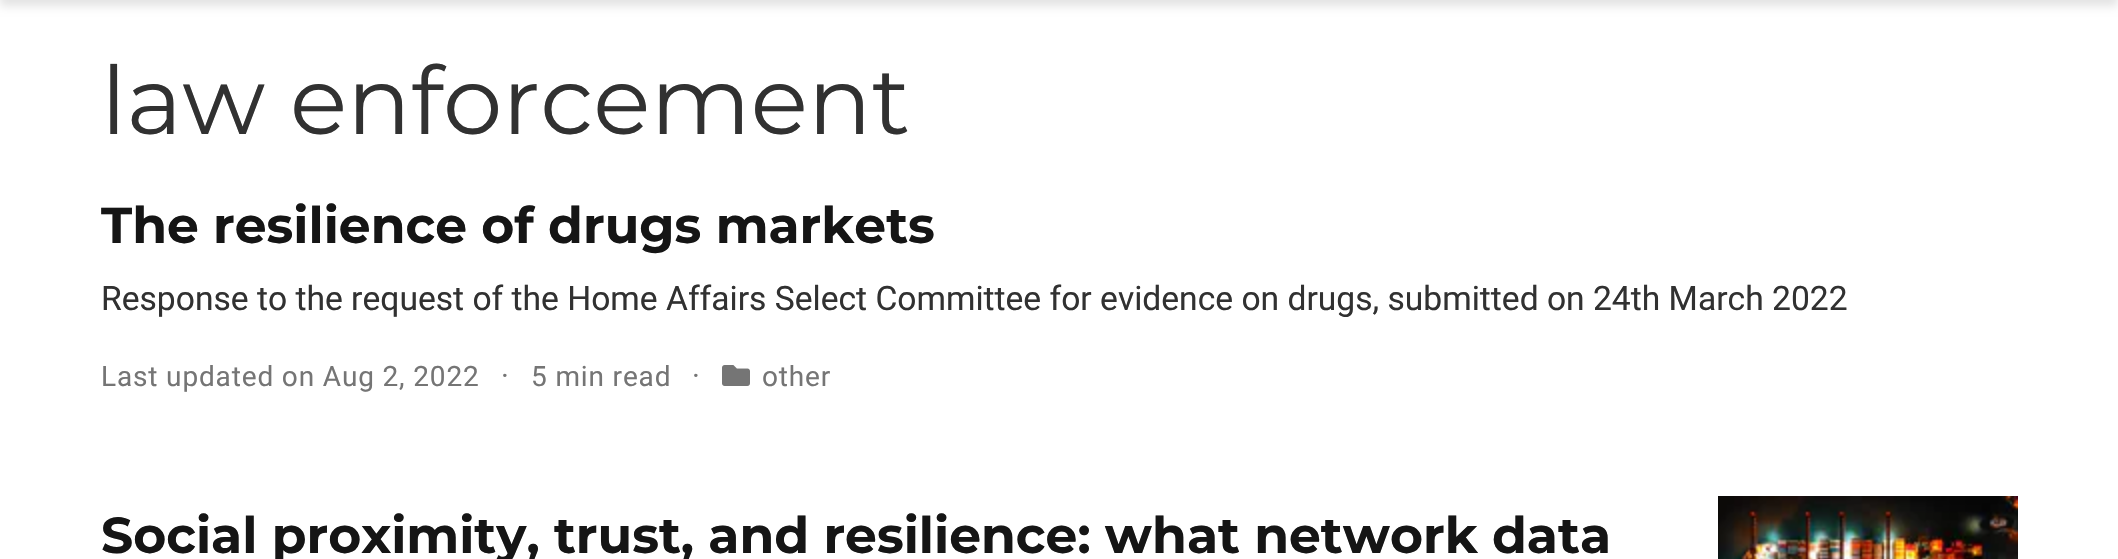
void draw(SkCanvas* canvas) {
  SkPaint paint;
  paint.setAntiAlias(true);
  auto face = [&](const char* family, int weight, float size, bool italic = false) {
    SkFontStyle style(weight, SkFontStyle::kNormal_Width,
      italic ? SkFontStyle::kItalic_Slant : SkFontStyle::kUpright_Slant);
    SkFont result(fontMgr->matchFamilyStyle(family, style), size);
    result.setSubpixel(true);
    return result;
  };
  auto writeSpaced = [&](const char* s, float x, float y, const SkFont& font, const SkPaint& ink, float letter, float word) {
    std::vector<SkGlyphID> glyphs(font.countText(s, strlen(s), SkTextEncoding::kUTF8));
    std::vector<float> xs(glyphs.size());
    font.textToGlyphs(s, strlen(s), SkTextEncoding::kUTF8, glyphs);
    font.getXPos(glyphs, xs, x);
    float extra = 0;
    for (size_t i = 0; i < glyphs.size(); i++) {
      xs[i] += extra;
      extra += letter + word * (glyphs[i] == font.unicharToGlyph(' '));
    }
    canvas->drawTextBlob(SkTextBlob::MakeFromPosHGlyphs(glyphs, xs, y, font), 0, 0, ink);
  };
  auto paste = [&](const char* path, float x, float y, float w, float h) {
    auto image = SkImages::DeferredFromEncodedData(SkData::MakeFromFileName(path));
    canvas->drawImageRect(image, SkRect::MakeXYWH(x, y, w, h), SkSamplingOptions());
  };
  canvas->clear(0xffffffff);
  paint.setColor(0x1c000000);
  paint.setMaskFilter(SkMaskFilter::MakeBlur(kNormal_SkBlurStyle, 5));
  canvas->drawRect(SkRect::MakeXYWH(0, -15, 2118, 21), paint);
  paint.setMaskFilter(nullptr);
  paste("img/1.png", 722, 365, 28, 21);
  paste("img/2.png", 1718, 496, 300, 63);
  auto f0 = face("Montserrat", 400, 94.5f);
  paint.setColor(0xff313131);
  canvas->drawString("law enforcement", 101, 134, f0, paint);
  auto f1 = face("Montserrat", 700, 50.4f);
  paint.setColor(0xff151515);
  canvas->drawString("The resilience of drugs markets", 101, 243, f1, paint);
  auto f2 = face("Roboto", 400, 33.6f);
  paint.setColor(0xff313131);
  canvas->drawString("Response to the request of the Home Affairs Select Committee for evidence on drugs, submitted on 24th March 2022", 101, 310, f2, paint);
  auto f3 = face("Roboto", 400, 28);
  paint.setColor(0xff757575);
  writeSpaced("Last updated on Aug 2, 2022", 101, 386, f3, paint, 0.85f, 0);
  auto f4 = face("Roboto", 400, 30);
  writeSpaced("·", 501, 386, f4, paint, 0.85f, 0);
  writeSpaced("5 min read", 531, 386, f3, paint, 0.85f, 0);
  writeSpaced("·", 692, 386, f4, paint, 0.85f, 0);
  writeSpaced("other", 762, 386, f3, paint, 0.85f, 0);
  paint.setColor(0xff151515);
  canvas->drawString("Social proximity, trust, and resilience: what network data", 101, 553, f1, paint);
}
